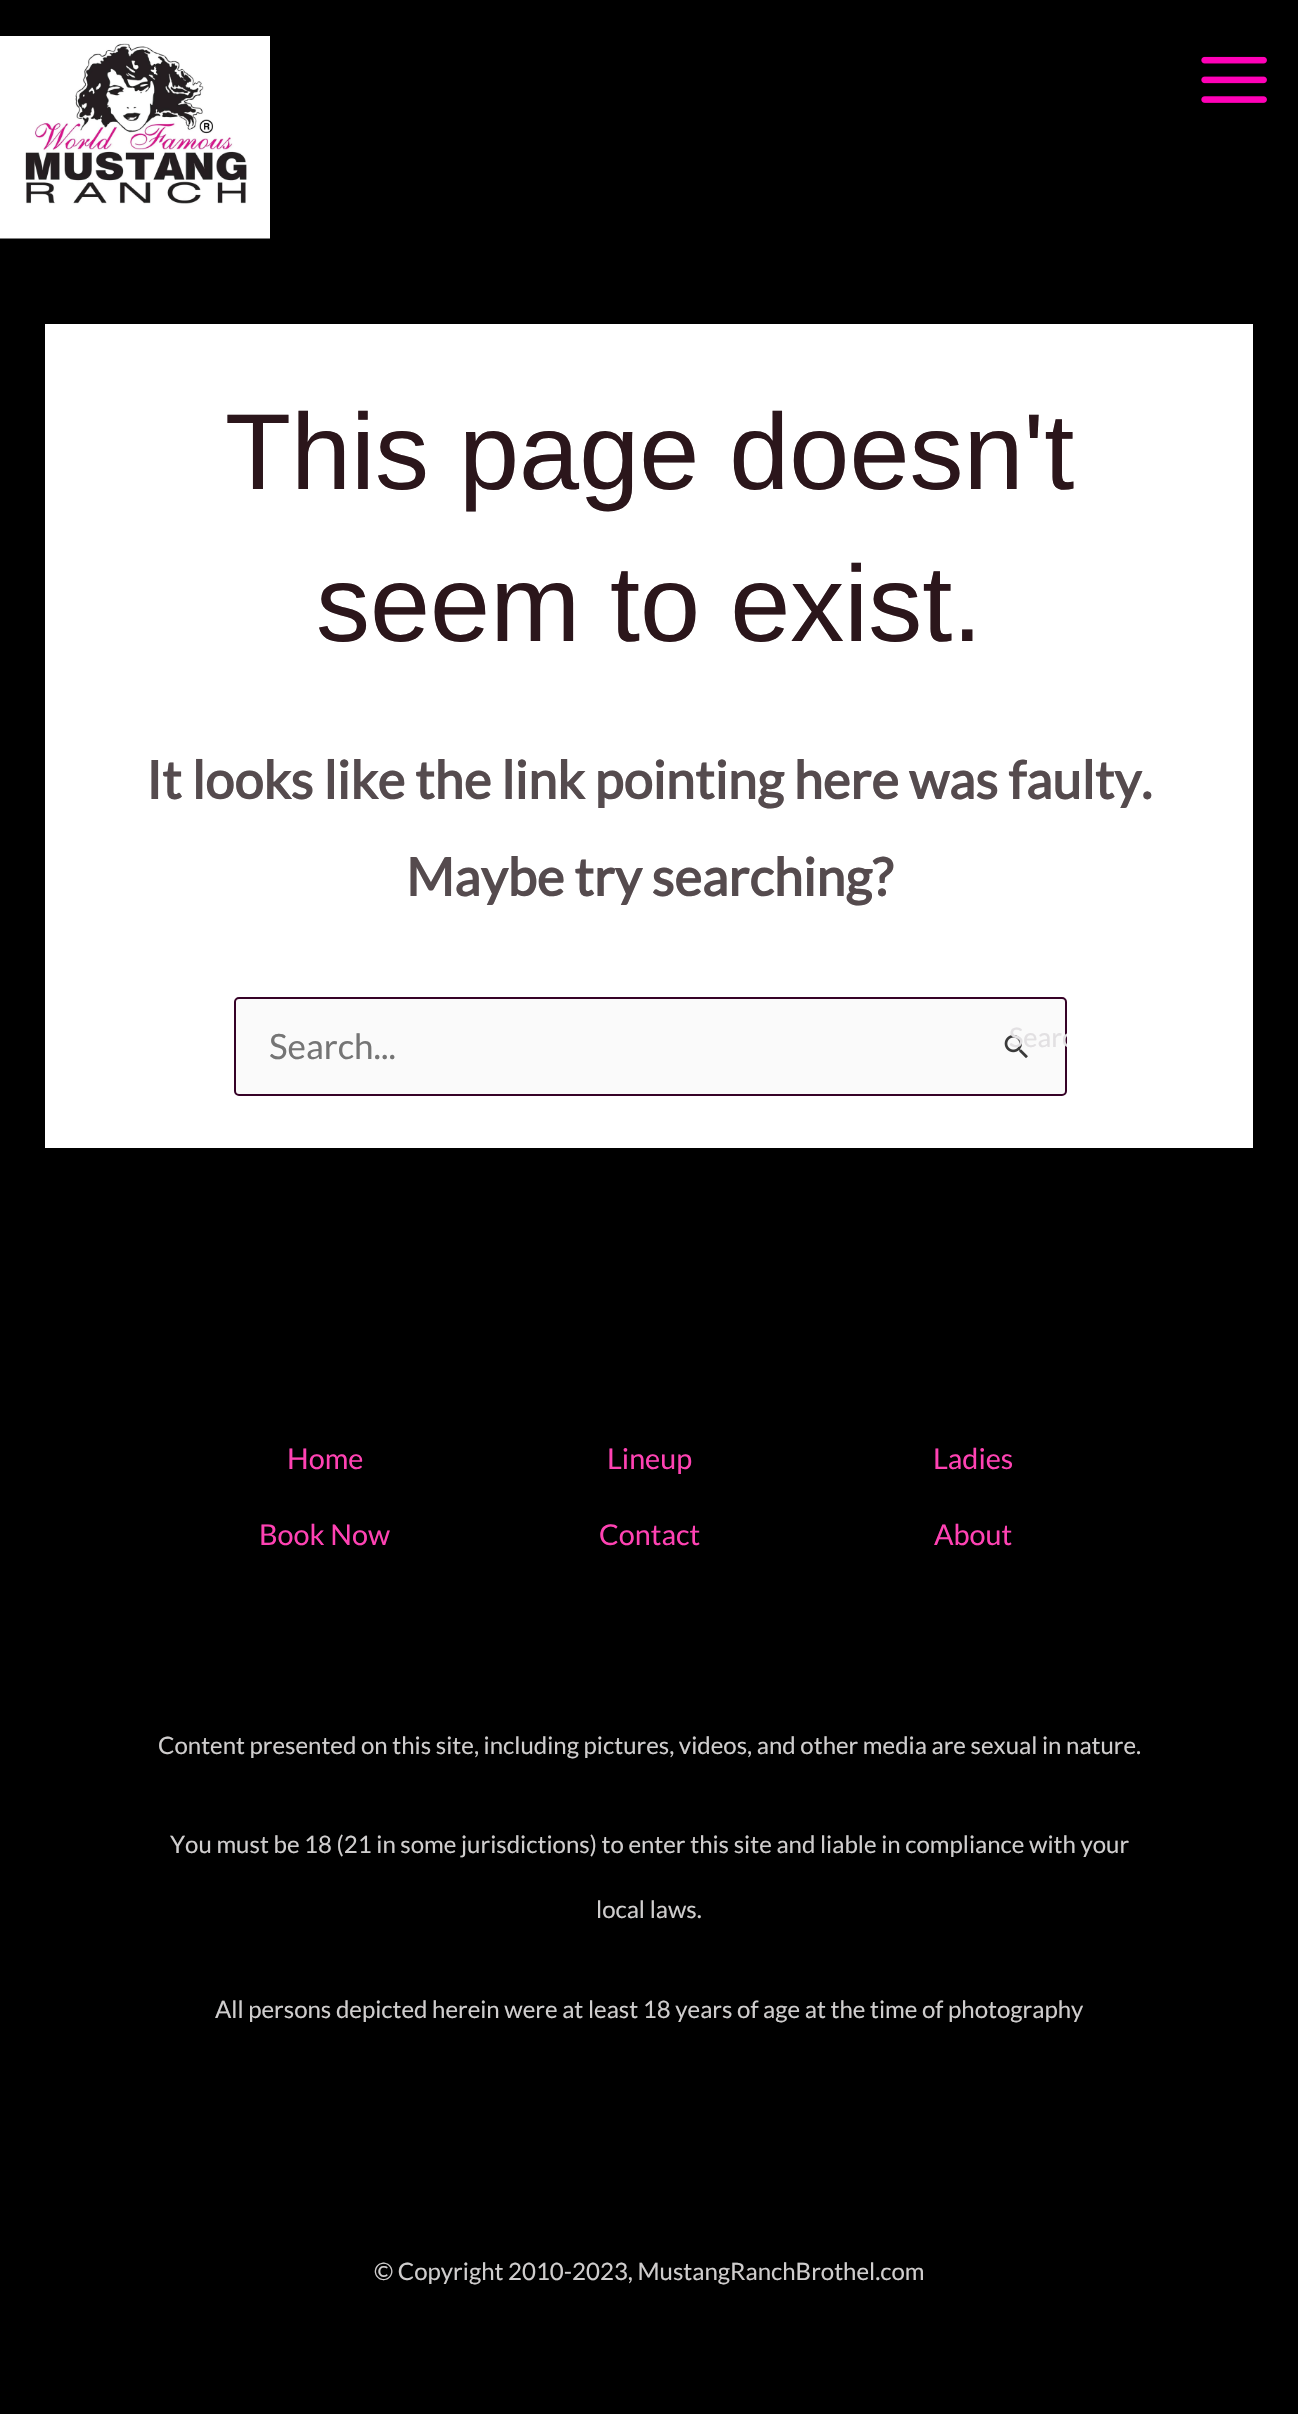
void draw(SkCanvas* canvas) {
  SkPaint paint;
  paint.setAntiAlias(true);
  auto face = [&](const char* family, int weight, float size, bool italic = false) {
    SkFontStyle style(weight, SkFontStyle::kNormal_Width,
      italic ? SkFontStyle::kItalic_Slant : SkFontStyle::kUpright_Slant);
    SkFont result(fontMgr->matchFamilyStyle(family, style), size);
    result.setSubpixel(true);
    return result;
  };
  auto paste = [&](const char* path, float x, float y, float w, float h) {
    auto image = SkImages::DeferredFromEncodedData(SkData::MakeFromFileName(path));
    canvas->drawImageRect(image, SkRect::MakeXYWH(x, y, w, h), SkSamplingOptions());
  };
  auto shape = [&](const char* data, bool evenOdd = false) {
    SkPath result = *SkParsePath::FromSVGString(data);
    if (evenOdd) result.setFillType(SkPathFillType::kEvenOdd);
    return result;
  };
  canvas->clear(0xff000000);
  paste("img/1.png", 0, 36, 270, 203);
  paste("img/2.png", 1201, 56, 66, 47);
  paint.setColor(0xffffffff);
  canvas->drawRect(SkRect::MakeXYWH(45, 324, 1208, 824), paint);
  paint.setColor(0xfffafafa);
  canvas->drawRoundRect(SkRect::MakeXYWH(235, 998, 831, 97), 4, 4, paint);
  paint.setStroke(true);
  paint.setStrokeWidth(2);
  paint.setColor(0xff360227);
  canvas->drawRoundRect(SkRect::MakeXYWH(235, 998, 831, 97), 4, 4, paint);
  paste("img/3.png", 1004, 1034, 24, 24);
  auto f0 = face("Liberation Sans", 400, 108);
  paint.setStroke(false);
  paint.setColor(0xff2b161b);
  canvas->drawString("This page doesn't", 225, 489, f0, paint);
  canvas->drawString("seem to exist.", 316, 641, f0, paint);
  auto f1 = face("Lato", 700, 52.3f);
  paint.setColor(0xff554b4e);
  canvas->drawString("It looks like the link pointing here was faulty.", 146, 799, f1, paint);
  canvas->drawString("Maybe try searching?", 406, 896, f1, paint);
  auto f2 = face("Lato", 400, 35);
  paint.setColor(0xff757575);
  canvas->drawString("Search...", 269, 1059, f2, paint);
  canvas->save();
  canvas->clipPath(shape("M970 997H1062C1065 997 1067 999 1067 1002V1075C1067 1078 1065 1080 1062 1080H970C967 1080 965 1078 965 1075V1002C965 999 967 997 970 997Z"), true);
  auto f3 = face("Lato", 400, 27);
  paint.setColor(0xffe2e0e2);
  canvas->drawString("Searc", 1009, 1047, f3, paint);
  canvas->restore();
  auto f4 = face("Lato", 400, 28.75f);
  paint.setColor(0xffff42b3);
  {
    const struct { const char* s; float x, y; } items[] = {
      {"Home", 287, 1469},
      {"Lineup", 607, 1469},
      {"Ladies", 933, 1469},
      {"Book Now", 259, 1545},
      {"Contact", 599, 1545},
      {"About", 934, 1545},
    };
    for (auto [s, x, y] : items) {
      canvas->drawString(s, x, y, f4, paint);
    }
  }
  auto f5 = face("Lato", 400, 24);
  paint.setColor(0xffcfcdcd);
  {
    const struct { const char* s; float x, y; } items[] = {
      {"Content presented on this site, including pictures, videos, and other media are sexual in nature.", 158, 1754},
      {"You must be 18 (21 in some jurisdictions) to enter this site and liable in compliance with your", 170, 1853},
      {"local laws.", 596, 1918},
      {"All persons depicted herein were at least 18 years of age at the time of photography", 215, 2018},
      {"© Copyright 2010-2023, MustangRanchBrothel.com", 374, 2280},
    };
    for (auto [s, x, y] : items) {
      canvas->drawString(s, x, y, f5, paint);
    }
  }
}
